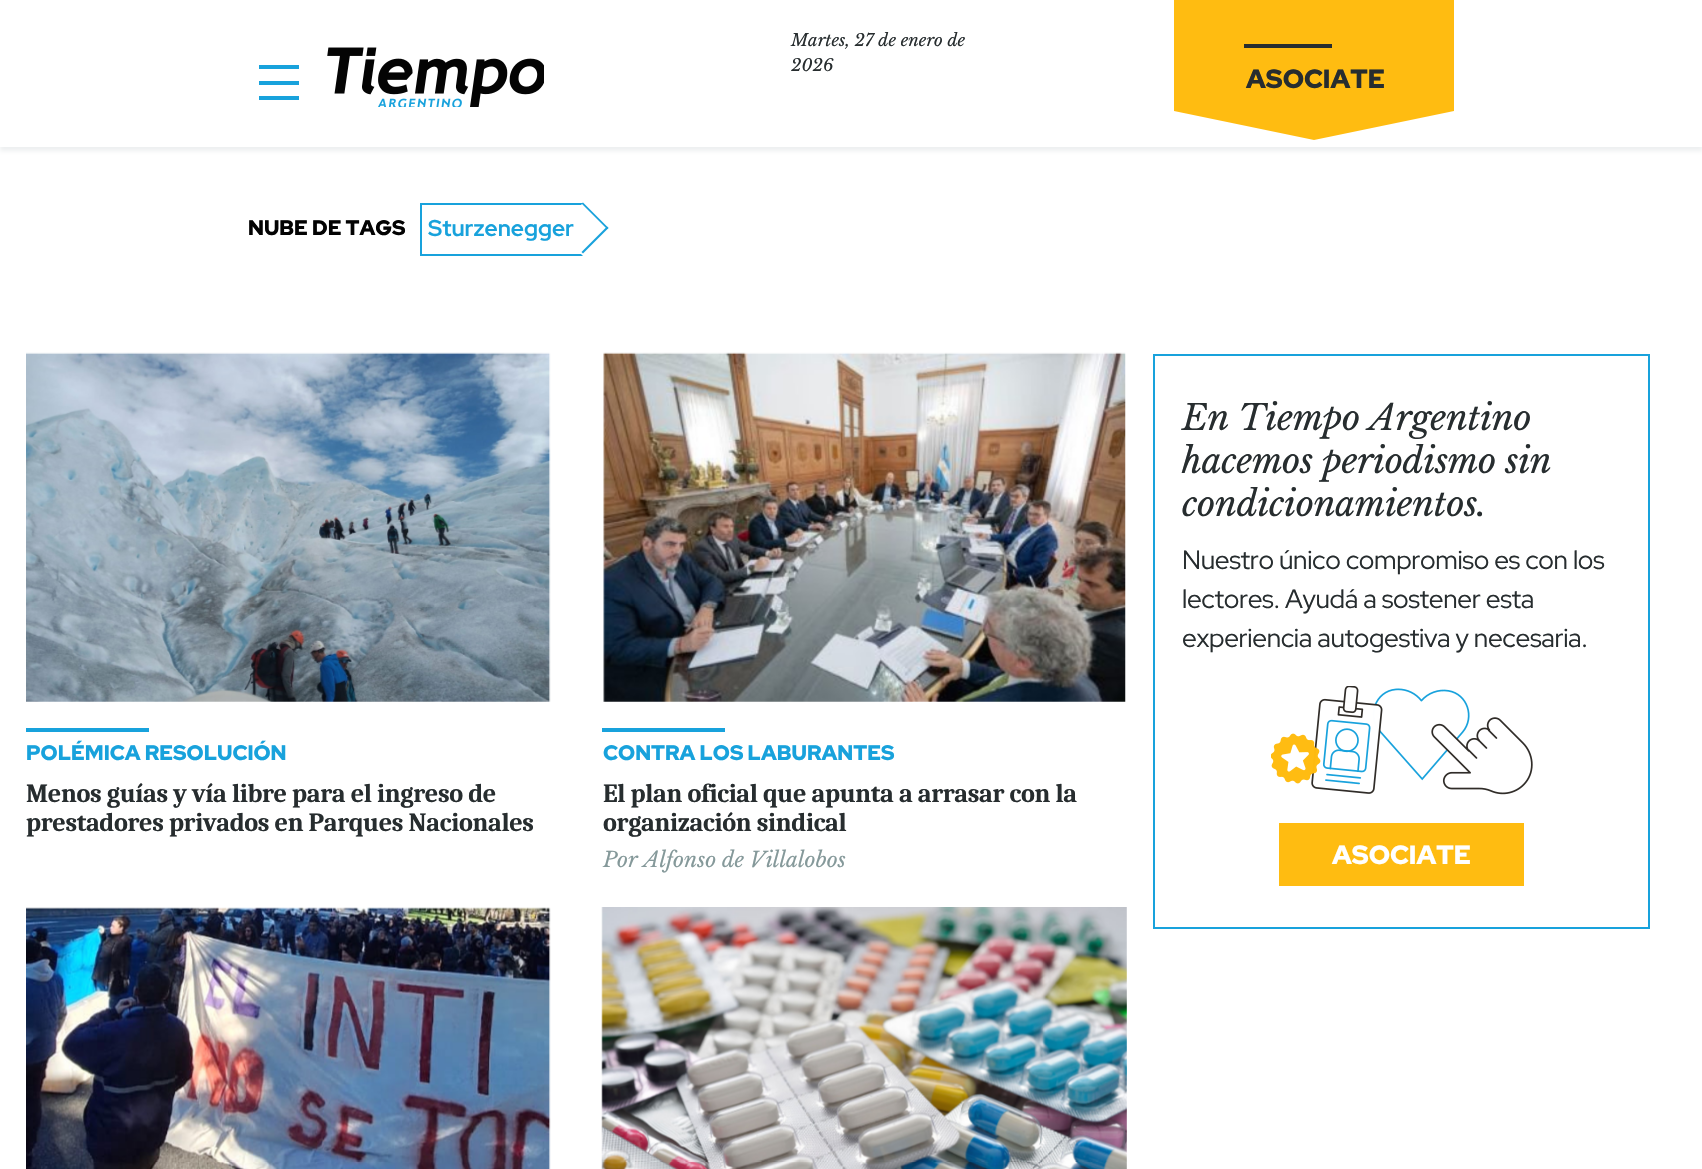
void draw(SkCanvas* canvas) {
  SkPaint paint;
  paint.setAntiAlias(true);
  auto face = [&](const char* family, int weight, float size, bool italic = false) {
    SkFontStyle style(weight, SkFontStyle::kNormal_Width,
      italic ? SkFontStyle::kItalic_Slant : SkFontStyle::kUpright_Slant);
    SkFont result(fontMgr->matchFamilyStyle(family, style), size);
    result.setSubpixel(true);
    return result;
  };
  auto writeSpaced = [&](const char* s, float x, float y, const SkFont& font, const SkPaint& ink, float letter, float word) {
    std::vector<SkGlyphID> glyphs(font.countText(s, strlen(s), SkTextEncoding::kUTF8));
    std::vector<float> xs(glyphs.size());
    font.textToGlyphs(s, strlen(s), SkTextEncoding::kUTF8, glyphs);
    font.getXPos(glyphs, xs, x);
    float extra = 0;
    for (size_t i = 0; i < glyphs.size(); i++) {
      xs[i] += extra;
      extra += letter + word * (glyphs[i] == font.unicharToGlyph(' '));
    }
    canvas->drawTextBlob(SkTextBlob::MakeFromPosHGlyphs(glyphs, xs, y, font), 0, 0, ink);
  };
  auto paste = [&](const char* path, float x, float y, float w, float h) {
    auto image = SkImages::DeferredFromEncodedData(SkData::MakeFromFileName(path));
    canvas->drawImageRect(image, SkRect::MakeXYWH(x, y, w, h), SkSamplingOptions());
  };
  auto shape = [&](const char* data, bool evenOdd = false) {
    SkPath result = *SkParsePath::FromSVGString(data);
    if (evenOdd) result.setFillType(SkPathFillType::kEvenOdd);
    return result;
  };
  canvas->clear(0xffffffff);
  canvas->save();
  canvas->clipRect(SkRect::MakeXYWH(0, 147, 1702, 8));
  paint.setColor(0xffeef0f1);
  paint.setMaskFilter(SkMaskFilter::MakeBlur(kNormal_SkBlurStyle, 2));
  canvas->drawRect(SkRect::MakeXYWH(0, 4, 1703, 147), paint);
  paint.setMaskFilter(nullptr);
  canvas->restore();
  {
    const struct { float x, y, w, h; SkColor color; } items[] = {
      {259, 65, 40, 4, 0xff18a2dc},
      {259, 81, 40, 4, 0xff18a2dc},
      {259, 96, 40, 4, 0xff18a2dc},
    };
    for (auto [x, y, w, h, color] : items) {
      paint.setColor(color);
      canvas->drawRect(SkRect::MakeXYWH(x, y, w, h), paint);
    }
  }
  paste("img/1.png", 327, 47, 217, 60);
  paint.setColor(0xffffbc11);
  canvas->drawPath(shape("M1174 111V0H1454V111L1314 140Z"), paint);
  paint.setColor(0xff272d2f);
  canvas->drawRect(SkRect::MakeXYWH(1244, 44, 88, 4), paint);
  paint.setColor(0xff18a2dc);
  canvas->drawPath(shape("M583 202.5L608.5 228L607 229L581.5 203.5Z"), paint);
  canvas->drawPath(shape("M420 203H583L581 205H422Z"), paint);
  canvas->drawPath(shape("M583 256H420L422 254H581Z"), paint);
  canvas->drawRect(SkRect::MakeXYWH(420, 203, 2, 53), paint);
  canvas->drawPath(shape("M607 226.5L608.5 228L583 253.5L581.5 252Z"), paint);
  paste("img/2.png", 26, 352, 525, 350);
  canvas->drawRect(SkRect::MakeXYWH(26, 728, 123, 4), paint);
  paste("img/3.png", 603, 352, 523, 350);
  canvas->drawRect(SkRect::MakeXYWH(602, 728, 123, 4), paint);
  paste("img/4.png", 26, 907, 525, 262);
  paste("img/5.png", 601, 907, 526, 262);
  paint.setStroke(true);
  paint.setStrokeWidth(2);
  canvas->drawRect(SkRect::MakeXYWH(1154, 355, 495, 573), paint);
  paste("img/6.png", 1271, 686, 262, 109);
  paint.setStroke(false);
  paint.setColor(0xffffbc11);
  canvas->drawRect(SkRect::MakeXYWH(1279, 823, 245, 63), paint);
  auto f0 = face("Libre Baskerville", 400, 16.75f, true);
  paint.setColor(0xff272d2f);
  canvas->drawString("Martes, 27 de enero de", 791, 46, f0, paint);
  canvas->drawString("2026", 791, 71, f0, paint);
  auto f1 = face("Red Hat Display", 900, 26.25f);
  canvas->drawString("ASOCIATE", 1246, 88, f1, paint);
  auto f2 = face("Red Hat Display", 900, 21);
  paint.setColor(0xff030303);
  canvas->drawString("NUBE DE TAGS", 248, 235, f2, paint);
  auto f3 = face("Red Hat Display", 700, 22.75f);
  paint.setColor(0xff18a2dc);
  canvas->drawString("Sturzenegger", 428, 236, f3, paint);
  canvas->drawString("POLÉMICA RESOLUCIÓN", 26, 760, f2, paint);
  auto f4 = face("Caladea", 700, 26.25f);
  paint.setColor(0xff272d2f);
  writeSpaced("Menos guías y vía libre para el ingreso de", 26, 802, f4, paint, -0.35f, 0);
  writeSpaced("prestadores privados en Parques Nacionales", 26, 831, f4, paint, -0.35f, 0);
  paint.setColor(0xff18a2dc);
  canvas->drawString("CONTRA LOS LABURANTES", 603, 760, f2, paint);
  paint.setColor(0xff272d2f);
  writeSpaced("El plan oficial que apunta a arrasar con la", 603, 802, f4, paint, -0.35f, 0);
  writeSpaced("organización sindical", 603, 831, f4, paint, -0.35f, 0);
  auto f5 = face("Libre Baskerville", 400, 21, true);
  paint.setColor(0xff85999a);
  canvas->drawString("Por Alfonso de Villalobos", 603, 867, f5, paint);
  auto f6 = face("Libre Baskerville", 400, 35, true);
  paint.setColor(0xff272d2f);
  {
    const struct { const char* s; float x, y; } items[] = {
      {"En Tiempo Argentino", 1182, 430},
      {"hacemos periodismo sin", 1182, 473},
      {"condicionamientos.", 1182, 516},
    };
    for (auto [s, x, y] : items) {
      writeSpaced(s, x, y, f6, paint, -0.35f, 0);
    }
  }
  auto f7 = face("Red Hat Display", 400, 26.25f);
  {
    const struct { const char* s; float x, y; } items[] = {
      {"Nuestro único compromiso es con los", 1182, 569},
      {"lectores. Ayudá a sostener esta", 1182, 608},
      {"experiencia autogestiva y necesaria.", 1182, 647},
    };
    for (auto [s, x, y] : items) {
      writeSpaced(s, x, y, f7, paint, -0.35f, 0);
    }
  }
  paint.setColor(0xffffffff);
  canvas->drawString("ASOCIATE", 1332, 864, f1, paint);
}
